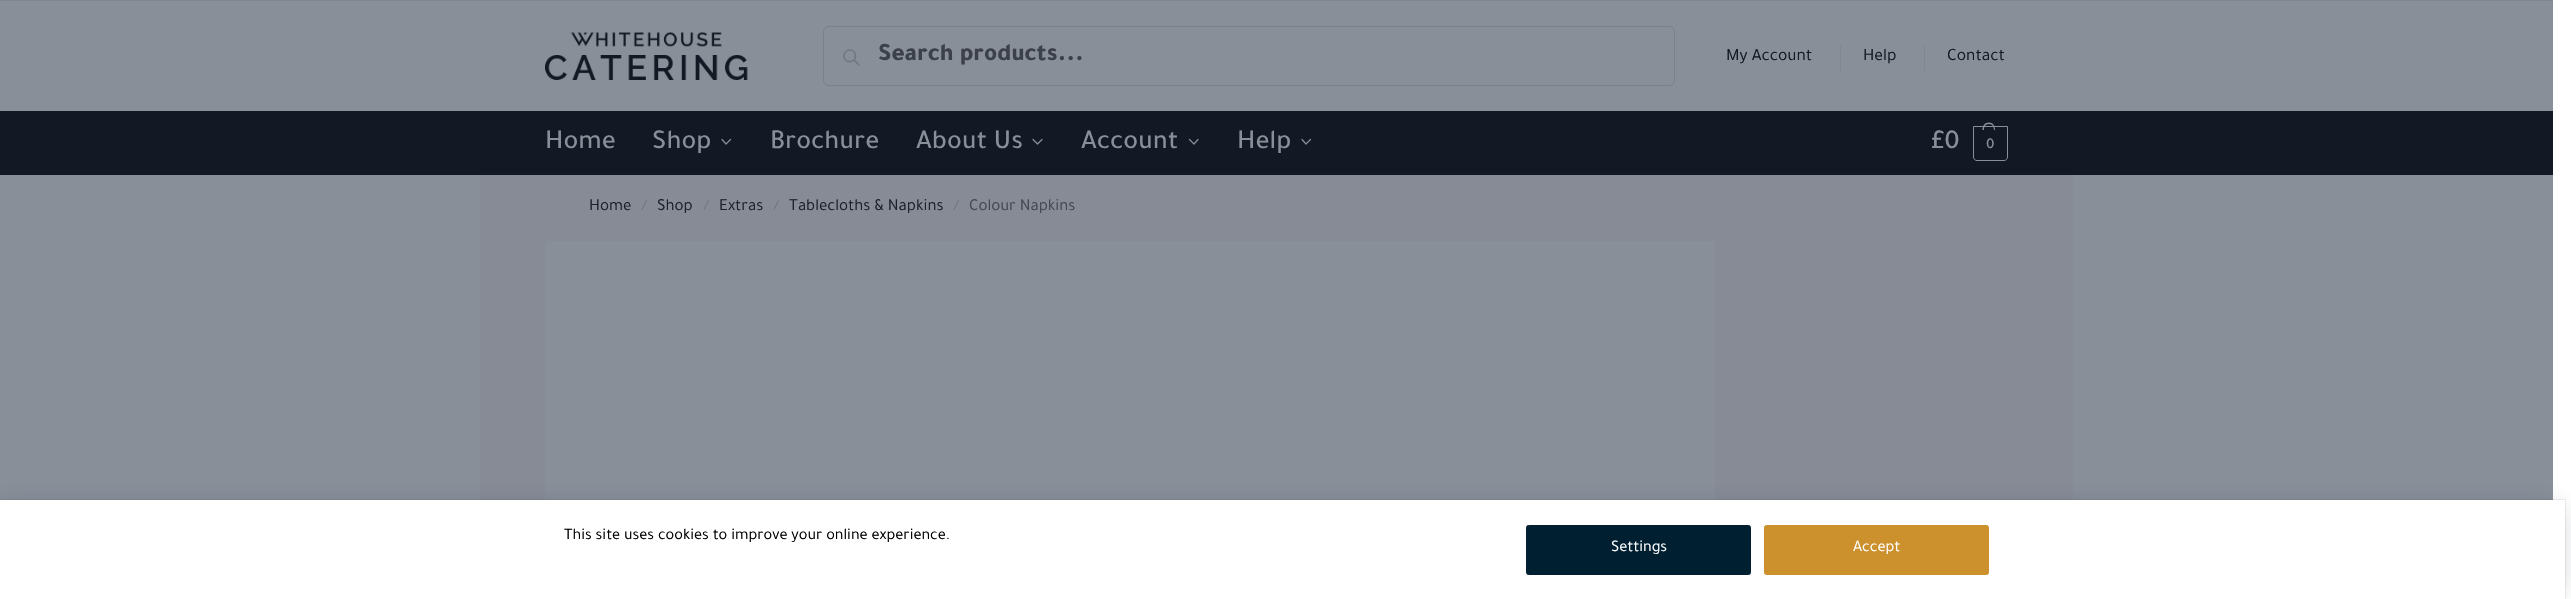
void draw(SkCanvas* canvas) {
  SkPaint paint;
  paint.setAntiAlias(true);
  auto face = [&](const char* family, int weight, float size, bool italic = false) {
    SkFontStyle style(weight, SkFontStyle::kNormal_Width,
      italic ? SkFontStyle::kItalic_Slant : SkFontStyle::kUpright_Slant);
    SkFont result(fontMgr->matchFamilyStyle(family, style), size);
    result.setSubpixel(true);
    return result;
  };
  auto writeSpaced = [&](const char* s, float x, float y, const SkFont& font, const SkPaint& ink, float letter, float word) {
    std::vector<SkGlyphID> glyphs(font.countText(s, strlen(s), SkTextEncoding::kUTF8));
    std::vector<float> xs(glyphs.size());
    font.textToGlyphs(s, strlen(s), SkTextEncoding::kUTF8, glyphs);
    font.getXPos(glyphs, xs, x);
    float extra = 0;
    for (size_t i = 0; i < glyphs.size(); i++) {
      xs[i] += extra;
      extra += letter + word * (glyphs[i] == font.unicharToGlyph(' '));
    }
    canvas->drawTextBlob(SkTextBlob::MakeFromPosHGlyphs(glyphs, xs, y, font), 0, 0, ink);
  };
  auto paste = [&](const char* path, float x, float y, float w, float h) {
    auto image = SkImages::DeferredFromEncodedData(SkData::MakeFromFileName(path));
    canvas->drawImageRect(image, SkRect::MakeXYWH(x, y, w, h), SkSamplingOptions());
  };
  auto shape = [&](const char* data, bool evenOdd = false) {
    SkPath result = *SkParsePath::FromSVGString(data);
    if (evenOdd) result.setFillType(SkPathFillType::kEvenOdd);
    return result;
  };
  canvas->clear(0xffffffff);
  paint.setColor(0xff898f99);
  canvas->drawRect(SkRect::MakeXYWH(0, 1, 2553, 499), paint);
  paint.setColor(0xff818791);
  canvas->drawRect(SkRect::MakeXYWH(0, 0, 2553, 1), paint);
  paste("img/1.png", 545, 32, 203, 48);
  paint.setStroke(true);
  paint.setStrokeWidth(1);
  paint.setColor(0xff7b818c);
  canvas->drawRoundRect(SkRect::MakeXYWH(823.5f, 26.5f, 851, 59), 5.5f, 5.5f, paint);
  paint.setStrokeWidth(1.7f);
  paint.setStrokeCap(SkPaint::kRound_Cap);
  paint.setStrokeJoin(SkPaint::kRound_Join);
  paint.setColor(0xff717781);
  canvas->drawPath(shape("M859 65L854 60M855.5 56C855.5 63.5 844 63.5 844 56C844 48 855.5 48 855.5 56Z"), paint);
  paint.setStroke(false);
  {
    const struct { float x, y, w, h; SkColor color; } items[] = {
      {1840, 45, 1, 26, 0xff818791},
      {1924, 45, 1, 26, 0xff818791},
      {0, 111, 2553, 64, 0xff131924},
    };
    for (auto [x, y, w, h, color] : items) {
      paint.setColor(color);
      canvas->drawRect(SkRect::MakeXYWH(x, y, w, h), paint);
    }
  }
  paint.setStroke(true);
  paint.setStrokeWidth(1.2f);
  paint.setColor(0xff898f99);
  canvas->drawPath(shape("M730.5 139.5L726 144L722 139.5"), paint);
  canvas->drawPath(shape("M1042 139.5L1037.5 144L1033 139.5"), paint);
  canvas->drawPath(shape("M1198 139.5L1194 144L1189.5 139.5"), paint);
  canvas->drawPath(shape("M1310.5 139.5L1306 144L1302 139.5"), paint);
  paint.setStrokeWidth(1);
  paint.setStrokeCap(SkPaint::kButt_Cap);
  paint.setStrokeJoin(SkPaint::kMiter_Join);
  canvas->drawPath(shape("M1973.5 126.5H2007.5V157C2007.5 159 2006 160.5 2004 160.5H1977C1975 160.5 1973.5 159 1973.5 157Z"), paint);
  paint.setStroke(false);
  canvas->drawPath(shape("M1989 122.5C1993 122.5 1995 126 1995 130H1982.5C1982.5 126 1984.5 122.5 1989 122.5ZM1989 124C1992.5 124 1994 127 1994 130H1984C1984 127 1985 124 1989 124Z", true), paint);
  paint.setColor(0xff868b96);
  canvas->drawRect(SkRect::MakeXYWH(480, 175, 1593, 325), paint);
  paint.setColor(0xff898f99);
  canvas->drawRect(SkRect::MakeXYWH(545, 241, 1170, 259), paint);
  paint.setColor(0x4f242f42);
  paint.setMaskFilter(SkMaskFilter::MakeBlur(kNormal_SkBlurStyle, 12.5f));
  canvas->drawRect(SkRect::MakeXYWH(-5, 508, 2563, 85), paint);
  paint.setMaskFilter(nullptr);
  paint.setStroke(true);
  paint.setColor(0x14242f42);
  canvas->drawRect(SkRect::MakeXYWH(-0.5f, 499.5f, 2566, 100), paint);
  paint.setStroke(false);
  paint.setColor(0xffffffff);
  canvas->drawRect(SkRect::MakeXYWH(0, 500, 2565, 99), paint);
  paint.setColor(0xff002032);
  canvas->drawRoundRect(SkRect::MakeXYWH(1526.5f, 525.5f, 224, 49), 2, 2, paint);
  paint.setStroke(true);
  canvas->drawRoundRect(SkRect::MakeXYWH(1526.5f, 525.5f, 224, 49), 2, 2, paint);
  paint.setStroke(false);
  paint.setColor(0xffcc912d);
  canvas->drawRoundRect(SkRect::MakeXYWH(1764.5f, 525.5f, 224, 49), 2, 2, paint);
  paint.setStroke(true);
  canvas->drawRoundRect(SkRect::MakeXYWH(1764.5f, 525.5f, 224, 49), 2, 2, paint);
  auto f0 = face("Tajawal", 800, 25);
  paint.setStroke(false);
  paint.setColor(0xff3b404b);
  canvas->drawString("Search products...", 878, 60, f0, paint);
  auto f1 = face("Tajawal", 400, 17.5f);
  paint.setColor(0xff131924);
  {
    const struct { const char* s; float x, y; } items[] = {
      {"My Account", 1726, 60},
      {"Help", 1863, 60},
      {"Contact", 1947, 60},
    };
    for (auto [s, x, y] : items) {
      canvas->drawString(s, x, y, f1, paint);
    }
  }
  auto f2 = face("Tajawal", 500, 27.5f);
  paint.setColor(0xff898f99);
  {
    const struct { const char* s; float x, y; } items[] = {
      {"Home", 545, 148},
      {"Shop", 652, 148},
      {"Brochure", 770, 148},
      {"About Us", 916, 148},
      {"Account", 1081, 148},
      {"Help", 1237, 148},
      {"£0", 1931, 148},
    };
    for (auto [s, x, y] : items) {
      canvas->drawString(s, x, y, f2, paint);
    }
  }
  auto f3 = face("Tajawal", 500, 15);
  writeSpaced("0", 1986, 148, f3, paint, -1, 0);
  auto f4 = face("Tajawal", 400, 16.9f);
  paint.setColor(0xff1b212b);
  canvas->drawString("Home", 589, 210, f4, paint);
  auto f5 = face("Tajawal", 400, 14);
  paint.setColor(0xff6b717b);
  canvas->drawString("/", 642, 209, f5, paint);
  paint.setColor(0xff1b212b);
  canvas->drawString("Shop", 657, 210, f4, paint);
  paint.setColor(0xff6b717b);
  canvas->drawString("/", 704, 209, f5, paint);
  paint.setColor(0xff1b212b);
  canvas->drawString("Extras", 719, 210, f4, paint);
  paint.setColor(0xff6b717b);
  canvas->drawString("/", 774, 209, f5, paint);
  paint.setColor(0xff1b212b);
  canvas->drawString("Tablecloths & Napkins", 789, 210, f4, paint);
  paint.setColor(0xff6b717b);
  canvas->drawString("/", 954, 209, f5, paint);
  paint.setColor(0xff424853);
  canvas->drawString("Colour Napkins", 969, 210, f4, paint);
  auto f6 = face("Tajawal", 400, 16.25f);
  paint.setColor(0xff000000);
  canvas->drawString("This site uses cookies to improve your online experience.", 564, 539, f6, paint);
  paint.setColor(0xffffffff);
  canvas->drawString("Settings", 1611, 551, f6, paint);
  canvas->drawString("Accept", 1853, 551, f6, paint);
}
